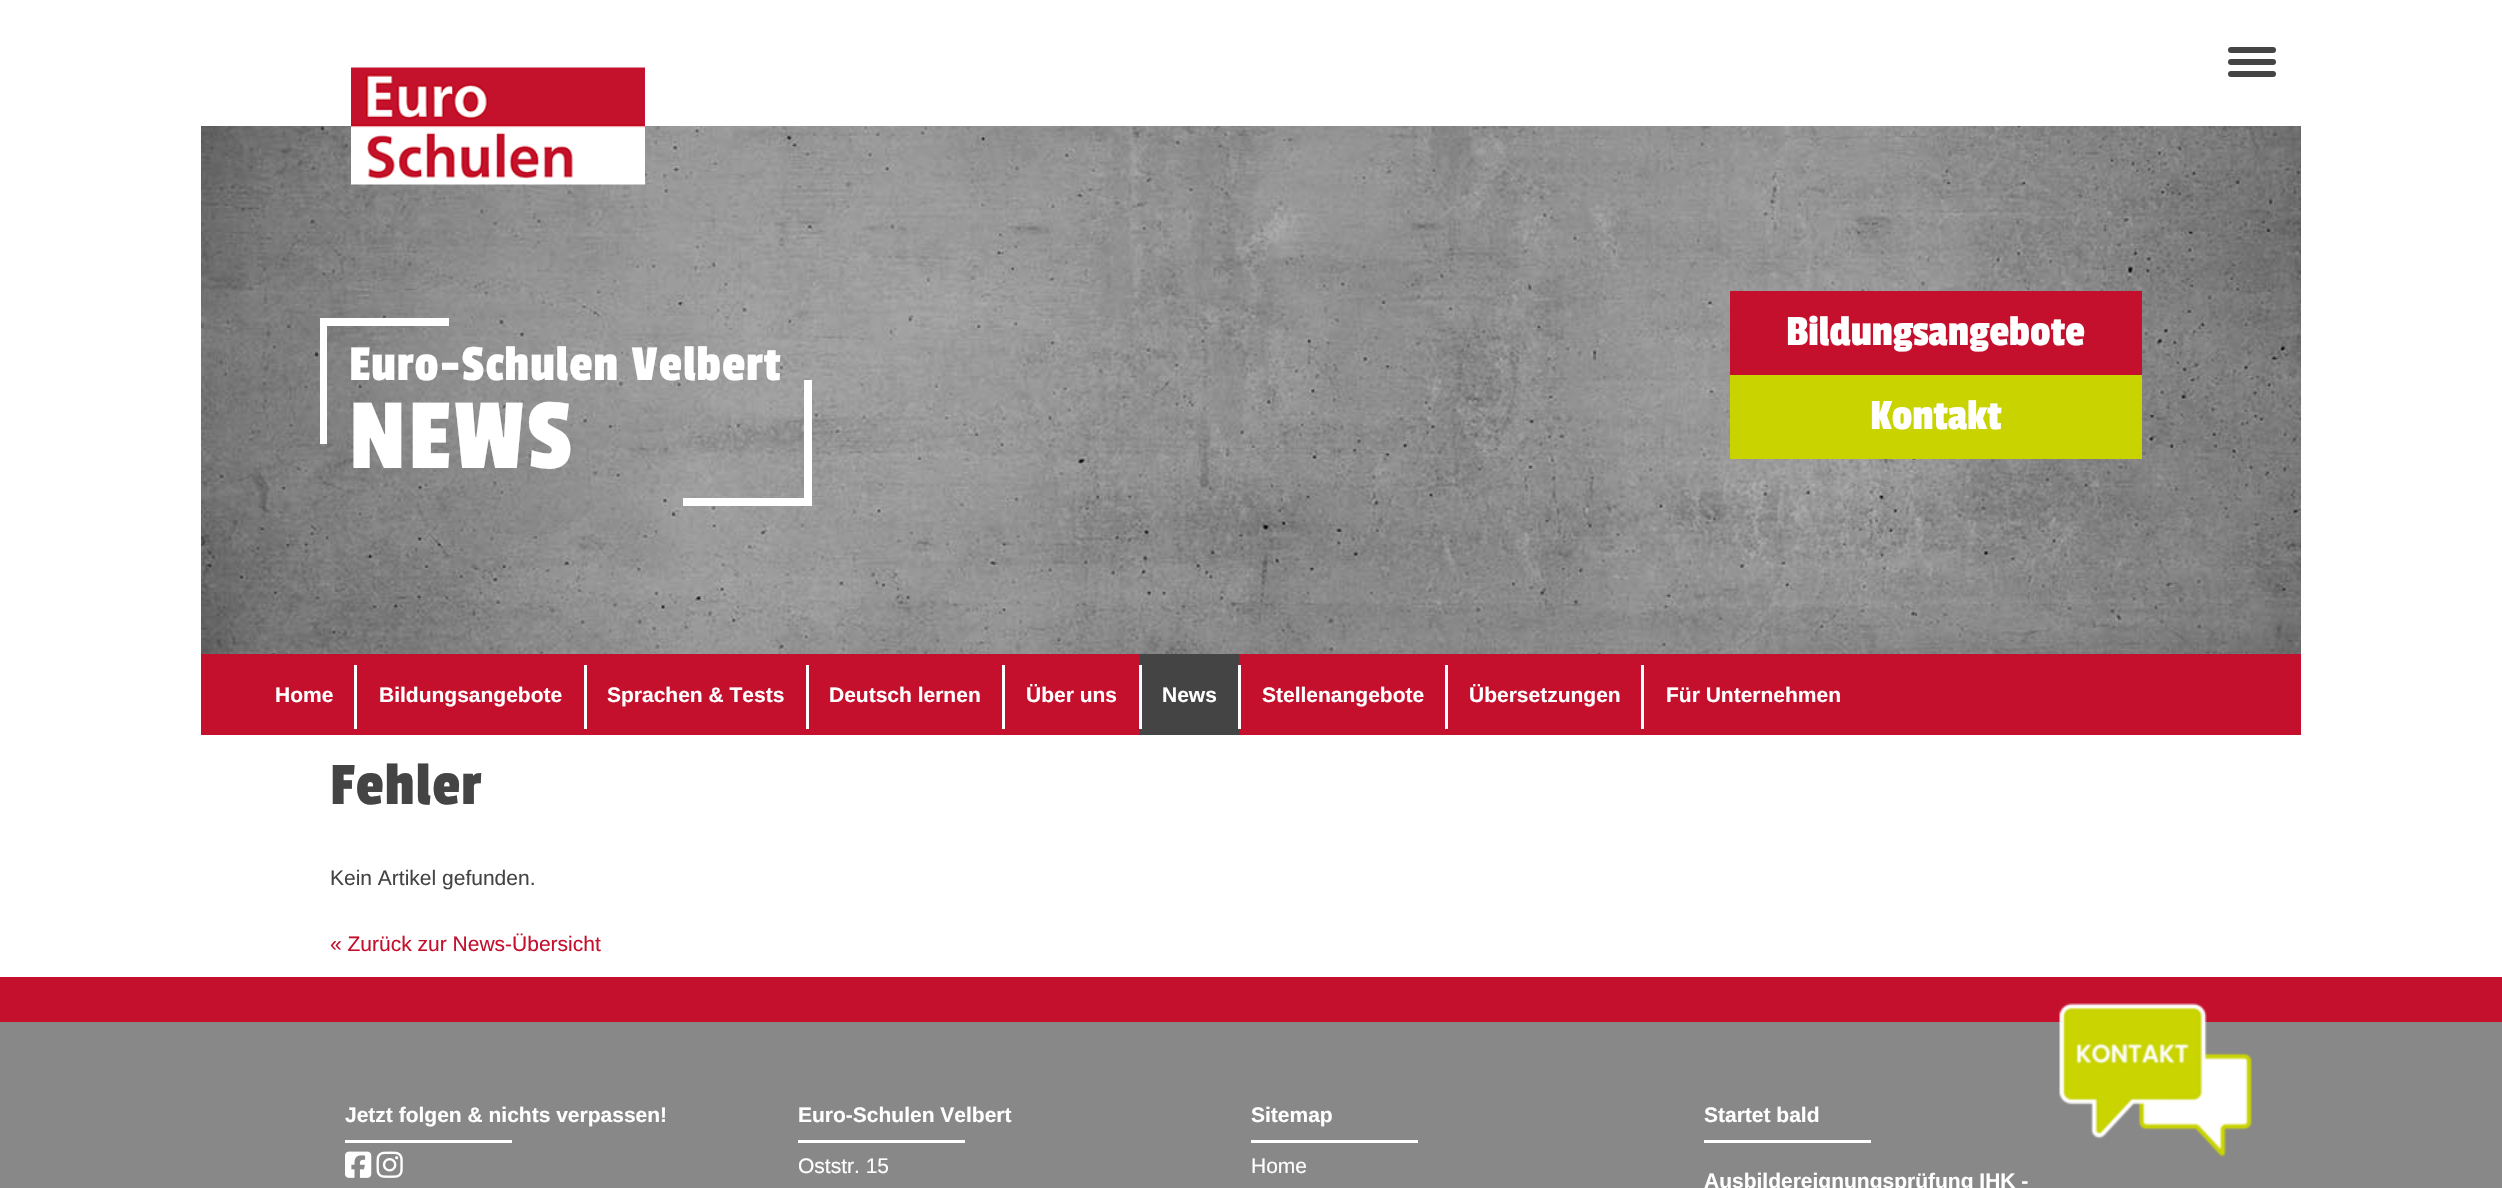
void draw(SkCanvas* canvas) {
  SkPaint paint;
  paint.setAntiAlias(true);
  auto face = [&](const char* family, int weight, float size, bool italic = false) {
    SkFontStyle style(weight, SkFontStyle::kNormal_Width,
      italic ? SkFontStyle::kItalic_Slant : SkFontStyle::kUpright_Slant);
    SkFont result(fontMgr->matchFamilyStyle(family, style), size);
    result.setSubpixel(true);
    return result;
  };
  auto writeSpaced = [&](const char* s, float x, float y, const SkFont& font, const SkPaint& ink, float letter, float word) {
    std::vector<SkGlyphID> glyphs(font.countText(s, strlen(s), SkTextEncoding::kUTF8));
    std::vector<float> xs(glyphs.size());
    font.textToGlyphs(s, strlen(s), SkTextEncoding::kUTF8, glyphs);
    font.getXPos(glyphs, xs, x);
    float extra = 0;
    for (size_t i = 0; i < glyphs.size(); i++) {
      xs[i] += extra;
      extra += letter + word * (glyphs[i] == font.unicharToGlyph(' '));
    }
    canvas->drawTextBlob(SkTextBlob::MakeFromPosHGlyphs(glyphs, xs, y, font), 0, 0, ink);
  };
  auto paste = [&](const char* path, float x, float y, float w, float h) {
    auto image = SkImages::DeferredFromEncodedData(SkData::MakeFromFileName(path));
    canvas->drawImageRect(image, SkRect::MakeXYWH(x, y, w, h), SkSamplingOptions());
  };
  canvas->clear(0xffffffff);
  paint.setColor(0xff444444);
  canvas->drawRoundRect(SkRect::MakeXYWH(2228, 59, 48, 6), 3, 3, paint);
  canvas->drawRoundRect(SkRect::MakeXYWH(2228, 47, 48, 6), 3, 3, paint);
  canvas->drawRoundRect(SkRect::MakeXYWH(2228, 71, 48, 6), 3, 3, paint);
  paste("img/2.png", 201, 126, 2100, 528);
  paste("img/1.png", 351, 67, 294, 118);
  {
    const struct { float x, y, w, h; SkColor color; } items[] = {
      {320, 318, 129, 8, 0xffffffff},
      {320, 318, 7, 126, 0xffffffff},
      {804, 380, 8, 126, 0xffffffff},
      {683, 498, 129, 8, 0xffffffff},
      {1730, 291, 412, 84, 0xffc4102d},
      {1730, 375, 412, 84, 0xffc8d300},
      {201, 654, 2100, 81, 0xffc4102d},
      {354, 665, 3, 64, 0xffffffff},
      {584, 665, 3, 64, 0xffffffff},
      {806, 665, 3, 64, 0xffffffff},
      {1002, 665, 3, 64, 0xffffffff},
      {1140, 654, 99, 81, 0xff444444},
      {1139, 665, 3, 64, 0xffffffff},
      {1238, 665, 3, 64, 0xffffffff},
      {1445, 665, 3, 64, 0xffffffff},
      {1641, 665, 3, 64, 0xffffffff},
      {0, 1022, 2502, 166, 0xff888888},
      {0, 977, 2502, 45, 0xffc4102d},
      {345, 1140, 167, 3, 0xffffffff},
    };
    for (auto [x, y, w, h, color] : items) {
      paint.setColor(color);
      canvas->drawRect(SkRect::MakeXYWH(x, y, w, h), paint);
    }
  }
  paste("img/3.png", 345, 1151, 27, 27);
  paste("img/4.png", 376, 1151, 27, 27);
  {
    const struct { float x, y, w, h; SkColor color; } items[] = {
      {798, 1140, 167, 3, 0xffffffff},
      {1251, 1140, 167, 3, 0xffffffff},
      {1704, 1140, 167, 3, 0xffffffff},
    };
    for (auto [x, y, w, h, color] : items) {
      paint.setColor(color);
      canvas->drawRect(SkRect::MakeXYWH(x, y, w, h), paint);
    }
  }
  paste("img/5.png", 2059, 1003, 193, 154);
  auto f0 = face("Passion One", 400, 52.5f);
  writeSpaced("Euro-Schulen Velbert", 349, 380, f0, paint, 1.1f, 0);
  auto f1 = face("Passion One", 400, 105);
  writeSpaced("NEWS", 349, 468, f1, paint, 2.5f, 0);
  auto f2 = face("Passion One", 400, 45);
  canvas->drawString("Bildungsangebote", 1786, 345, f2, paint);
  canvas->drawString("Kontakt", 1870, 429, f2, paint);
  auto f3 = face("Liberation Sans", 700, 21);
  {
    const struct { const char* s; float x, y; } items[] = {
      {"Home", 275, 702},
      {"Bildungsangebote", 379, 702},
      {"Sprachen & Tests", 607, 702},
      {"Deutsch lernen", 829, 702},
      {"Über uns", 1026, 702},
      {"News", 1162, 702},
      {"Stellenangebote", 1262, 702},
      {"Übersetzungen", 1469, 702},
      {"Für Unternehmen", 1666, 702},
    };
    for (auto [s, x, y] : items) {
      canvas->drawString(s, x, y, f3, paint);
    }
  }
  auto f4 = face("Passion One", 400, 63);
  paint.setColor(0xff444444);
  writeSpaced("Fehler", 330, 804, f4, paint, 1.5f, 0);
  auto f5 = face("Liberation Sans", 400, 21);
  canvas->drawString("Kein Artikel gefunden.", 330, 885, f5, paint);
  paint.setColor(0xffc4102d);
  canvas->drawString("« Zurück zur News-Übersicht", 330, 951, f5, paint);
  paint.setColor(0xffffffff);
  canvas->drawString("Jetzt folgen & nichts verpassen!", 345, 1122, f3, paint);
  canvas->drawString("Euro-Schulen Velbert", 798, 1122, f3, paint);
  canvas->drawString("Oststr. 15", 798, 1173, f5, paint);
  canvas->drawString("Sitemap", 1251, 1122, f3, paint);
  canvas->drawString("Home", 1251, 1173, f5, paint);
  canvas->drawString("Startet bald", 1704, 1122, f3, paint);
  canvas->drawString("Ausbildereignungsprüfung IHK -", 1704, 1188, f3, paint);
}
